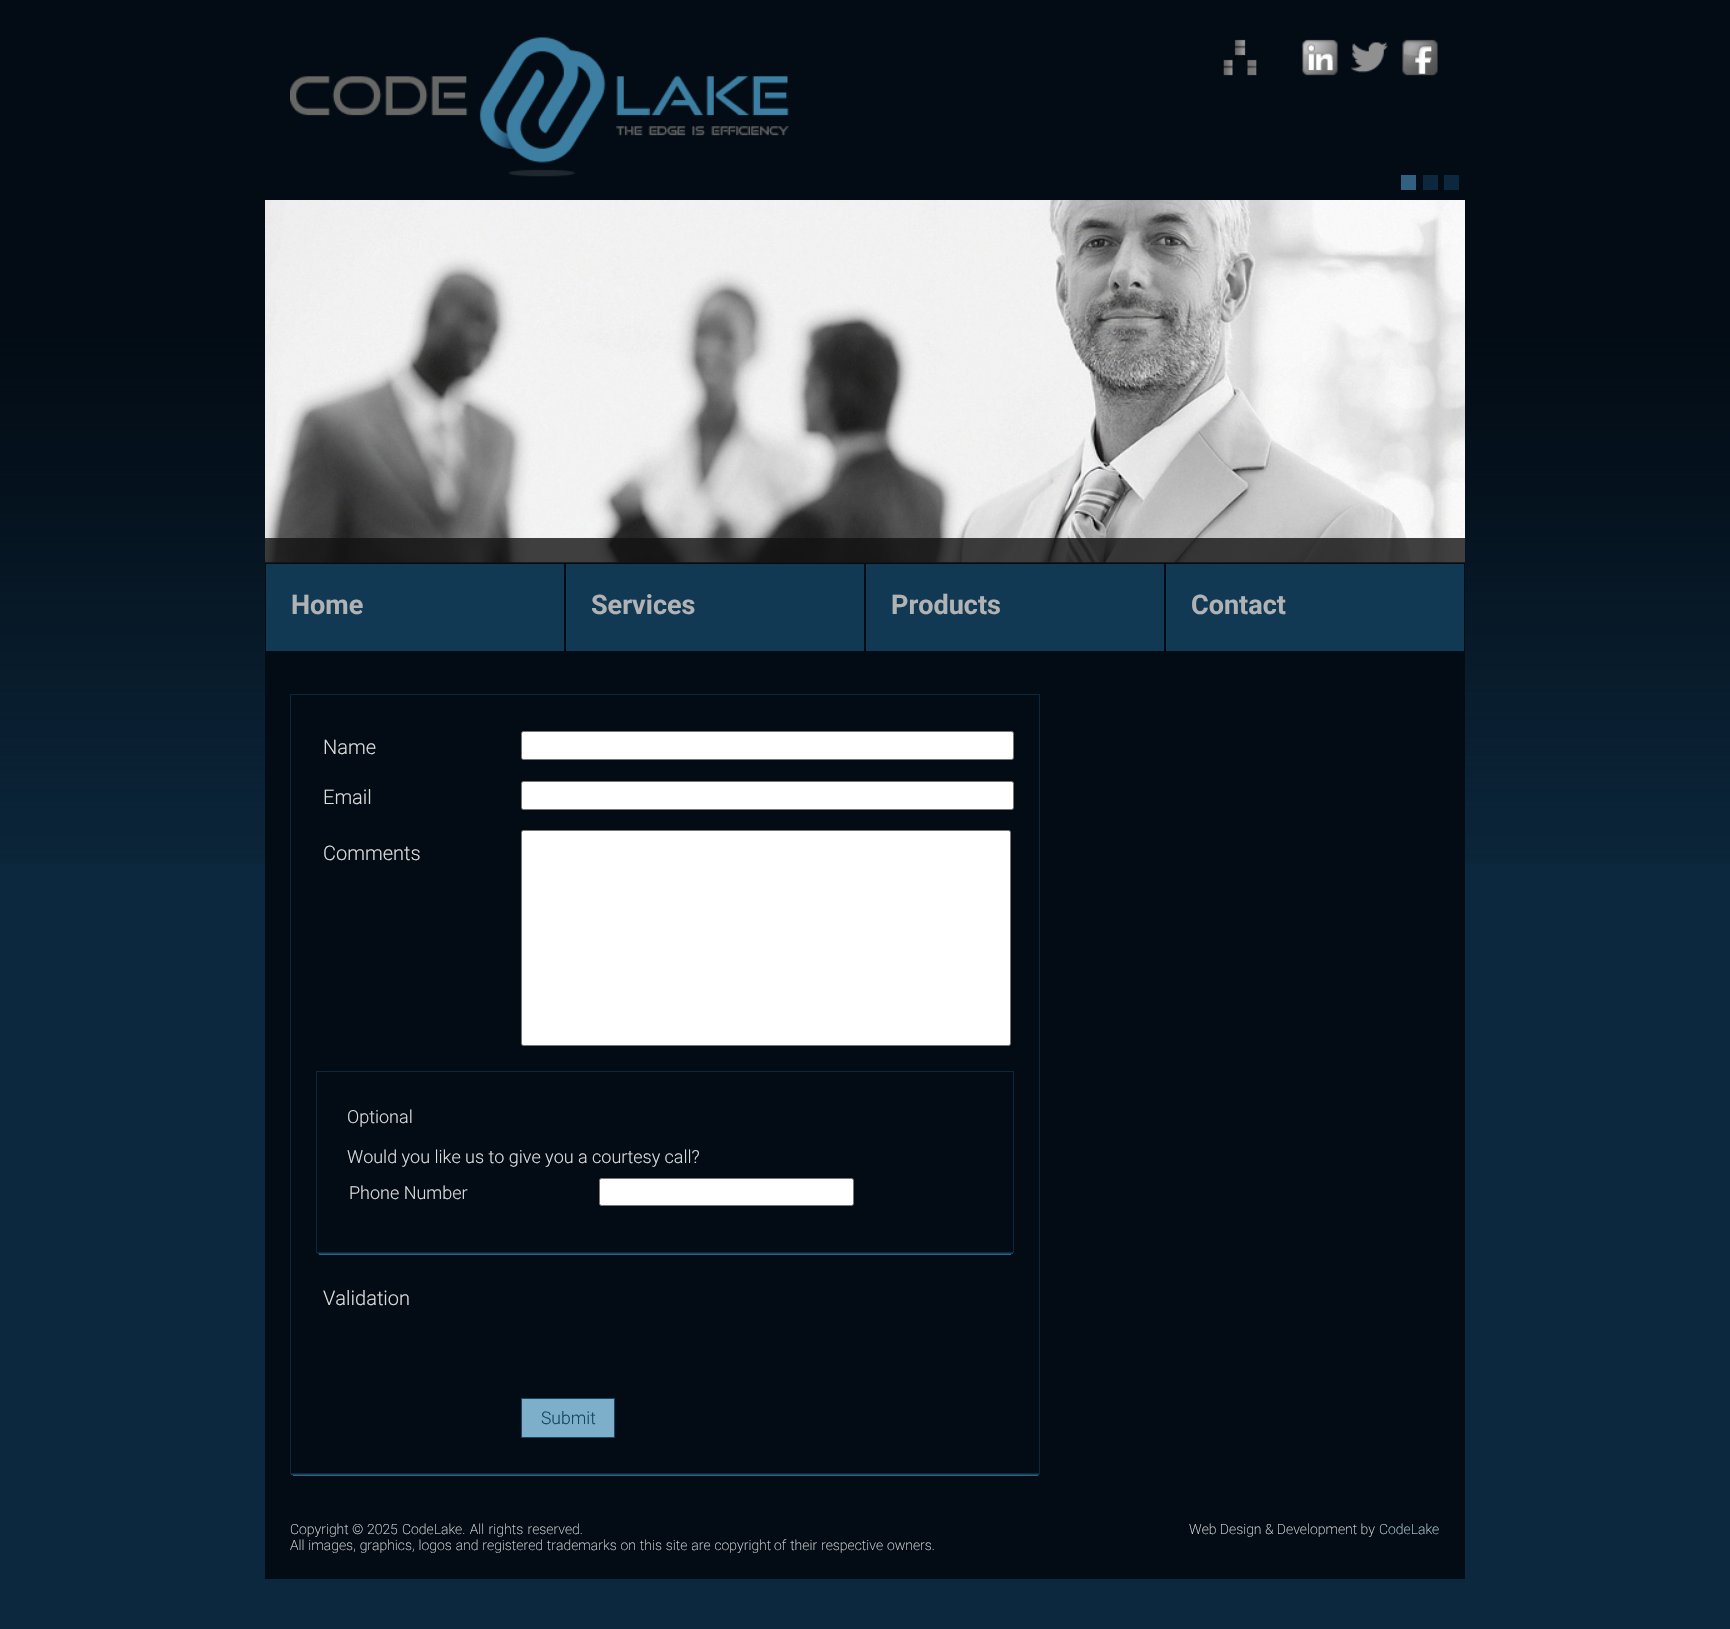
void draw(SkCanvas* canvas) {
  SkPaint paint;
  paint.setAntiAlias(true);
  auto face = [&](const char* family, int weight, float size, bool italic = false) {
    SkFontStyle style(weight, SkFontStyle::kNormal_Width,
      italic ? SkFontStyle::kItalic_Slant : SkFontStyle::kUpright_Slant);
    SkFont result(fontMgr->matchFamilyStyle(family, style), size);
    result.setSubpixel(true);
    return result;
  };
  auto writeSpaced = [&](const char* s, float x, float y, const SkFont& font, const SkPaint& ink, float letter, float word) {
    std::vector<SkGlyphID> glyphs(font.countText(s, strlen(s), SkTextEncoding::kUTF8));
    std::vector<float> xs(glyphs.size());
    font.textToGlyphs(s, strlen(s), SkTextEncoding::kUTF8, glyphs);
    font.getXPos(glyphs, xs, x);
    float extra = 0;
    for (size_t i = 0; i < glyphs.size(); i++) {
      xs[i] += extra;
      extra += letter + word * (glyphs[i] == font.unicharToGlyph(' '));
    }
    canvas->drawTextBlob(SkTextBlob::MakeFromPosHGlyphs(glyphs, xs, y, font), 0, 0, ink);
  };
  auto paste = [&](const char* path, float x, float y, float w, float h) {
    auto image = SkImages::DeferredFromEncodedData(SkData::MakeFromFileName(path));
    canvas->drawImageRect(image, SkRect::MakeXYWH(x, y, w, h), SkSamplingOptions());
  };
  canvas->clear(0xff0c283e);
  paste("img/1.png", 0, 0, 1730, 864);
  paint.setColor(0xff030c15);
  canvas->drawRect(SkRect::MakeXYWH(265, 379, 1200, 1200), paint);
  paste("img/2.png", 290, 37, 499, 140);
  paste("img/3.png", 1223, 39, 34, 37);
  paste("img/4.png", 1301, 39, 37, 37);
  paste("img/5.png", 1351, 42, 37, 31);
  paste("img/6.png", 1402, 39, 36, 37);
  {
    const struct { float x, y, w, h; SkColor color; } items[] = {
      {1401, 175, 15, 15, 0xff326081},
      {1423, 175, 15, 15, 0xff0c283e},
      {1444, 175, 15, 15, 0xff0c283e},
    };
    for (auto [x, y, w, h, color] : items) {
      paint.setColor(color);
      canvas->drawRect(SkRect::MakeXYWH(x, y, w, h), paint);
    }
  }
  paste("img/7.png", 265, 200, 1200, 363);
  {
    const struct { float x, y, w, h; SkColor color; } items[] = {
      {265, 538, 1200, 25, 0xcc111111},
      {266, 564, 298, 87, 0xff113953},
      {566, 564, 298, 87, 0xff113953},
      {866, 564, 298, 87, 0xff113953},
      {1166, 564, 298, 87, 0xff113953},
    };
    for (auto [x, y, w, h, color] : items) {
      paint.setColor(color);
      canvas->drawRect(SkRect::MakeXYWH(x, y, w, h), paint);
    }
  }
  paint.setStroke(true);
  paint.setStrokeWidth(1);
  paint.setColor(0xff0c283e);
  canvas->drawRect(SkRect::MakeXYWH(290.5f, 694.5f, 749, 779), paint);
  paint.setStroke(false);
  paint.setColor(0xffffffff);
  canvas->drawRoundRect(SkRect::MakeXYWH(521.5f, 731.5f, 492, 28), 2, 2, paint);
  paint.setStroke(true);
  paint.setColor(0xff767676);
  canvas->drawRoundRect(SkRect::MakeXYWH(521.5f, 731.5f, 492, 28), 2, 2, paint);
  paint.setStroke(false);
  paint.setColor(0xffffffff);
  canvas->drawRoundRect(SkRect::MakeXYWH(521.5f, 781.5f, 492, 28), 2, 2, paint);
  paint.setStroke(true);
  paint.setColor(0xff767676);
  canvas->drawRoundRect(SkRect::MakeXYWH(521.5f, 781.5f, 492, 28), 2, 2, paint);
  paint.setStroke(false);
  paint.setColor(0xffffffff);
  canvas->drawRoundRect(SkRect::MakeXYWH(521.5f, 830.5f, 489, 215), 2, 2, paint);
  paint.setStroke(true);
  paint.setColor(0xff767676);
  canvas->drawRoundRect(SkRect::MakeXYWH(521.5f, 830.5f, 489, 215), 2, 2, paint);
  paint.setColor(0xff0c283e);
  canvas->drawRect(SkRect::MakeXYWH(316.5f, 1071.5f, 697, 181), paint);
  paint.setStroke(false);
  paint.setColor(0xffffffff);
  canvas->drawRoundRect(SkRect::MakeXYWH(599.5f, 1178.5f, 254, 27), 2, 2, paint);
  paint.setStroke(true);
  paint.setColor(0xff767676);
  canvas->drawRoundRect(SkRect::MakeXYWH(599.5f, 1178.5f, 254, 27), 2, 2, paint);
  paint.setStroke(false);
  paint.setColor(0xff154462);
  canvas->drawRect(SkRect::MakeXYWH(318, 1253, 695, 1), paint);
  paint.setColor(0xff326081);
  canvas->drawRect(SkRect::MakeXYWH(319, 1254, 692, 1), paint);
  paint.setColor(0xff7dafca);
  canvas->drawRect(SkRect::MakeXYWH(521.5f, 1398.5f, 93, 39), paint);
  paint.setStroke(true);
  paint.setColor(0xff154462);
  canvas->drawRect(SkRect::MakeXYWH(521.5f, 1398.5f, 93, 39), paint);
  paint.setStroke(false);
  canvas->drawRect(SkRect::MakeXYWH(291, 1474, 748, 1), paint);
  paint.setColor(0xff326081);
  canvas->drawRect(SkRect::MakeXYWH(293, 1475, 745, 1), paint);
  auto f0 = face("Roboto", 700, 27);
  paint.setColor(0xffb1b2b4);
  {
    const struct { const char* s; float x, y; } items[] = {
      {"Home", 291, 614},
      {"Services", 591, 614},
      {"Products", 891, 614},
      {"Contact", 1191, 614},
    };
    for (auto [s, x, y] : items) {
      canvas->drawString(s, x, y, f0, paint);
    }
  }
  auto f1 = face("Roboto", 300, 20);
  paint.setColor(0xffdcdcdc);
  {
    const struct { const char* s; float x, y; } items[] = {
      {"Name", 323, 754},
      {"Email", 323, 804},
      {"Comments", 323, 860},
    };
    for (auto [s, x, y] : items) {
      canvas->drawString(s, x, y, f1, paint);
    }
  }
  auto f2 = face("Roboto", 300, 18);
  {
    const struct { const char* s; float x, y; } items[] = {
      {"Optional", 347, 1123},
      {"Would you like us to give you a courtesy call?", 347, 1163},
      {"Phone Number", 349, 1199},
    };
    for (auto [s, x, y] : items) {
      canvas->drawString(s, x, y, f2, paint);
    }
  }
  canvas->drawString("Validation", 323, 1305, f1, paint);
  auto f3 = face("Roboto", 300, 17.5f);
  paint.setColor(0xff154462);
  canvas->drawString("Submit", 541, 1424, f3, paint);
  auto f4 = face("Roboto", 200, 14);
  paint.setColor(0xffdcdcdc);
  canvas->drawString("Copyright ©", 290, 1534, f4, paint);
  canvas->drawString("2025", 367, 1534, f4, paint);
  writeSpaced("CodeLake. All rights reserved.", 402, 1534, f4, paint, 0, 1);
  writeSpaced("All images, graphics, logos and registered trademarks on this site are copyright", 290, 1550, f4, paint, 0, 0.5f);
  writeSpaced("of their respective owners.", 774, 1550, f4, paint, 0, 0.5f);
  canvas->drawString("Web Design & Development by", 1189, 1534, f4, paint);
  paint.setColor(0xffbed7e5);
  canvas->drawString("CodeLake", 1379, 1534, f4, paint);
}
